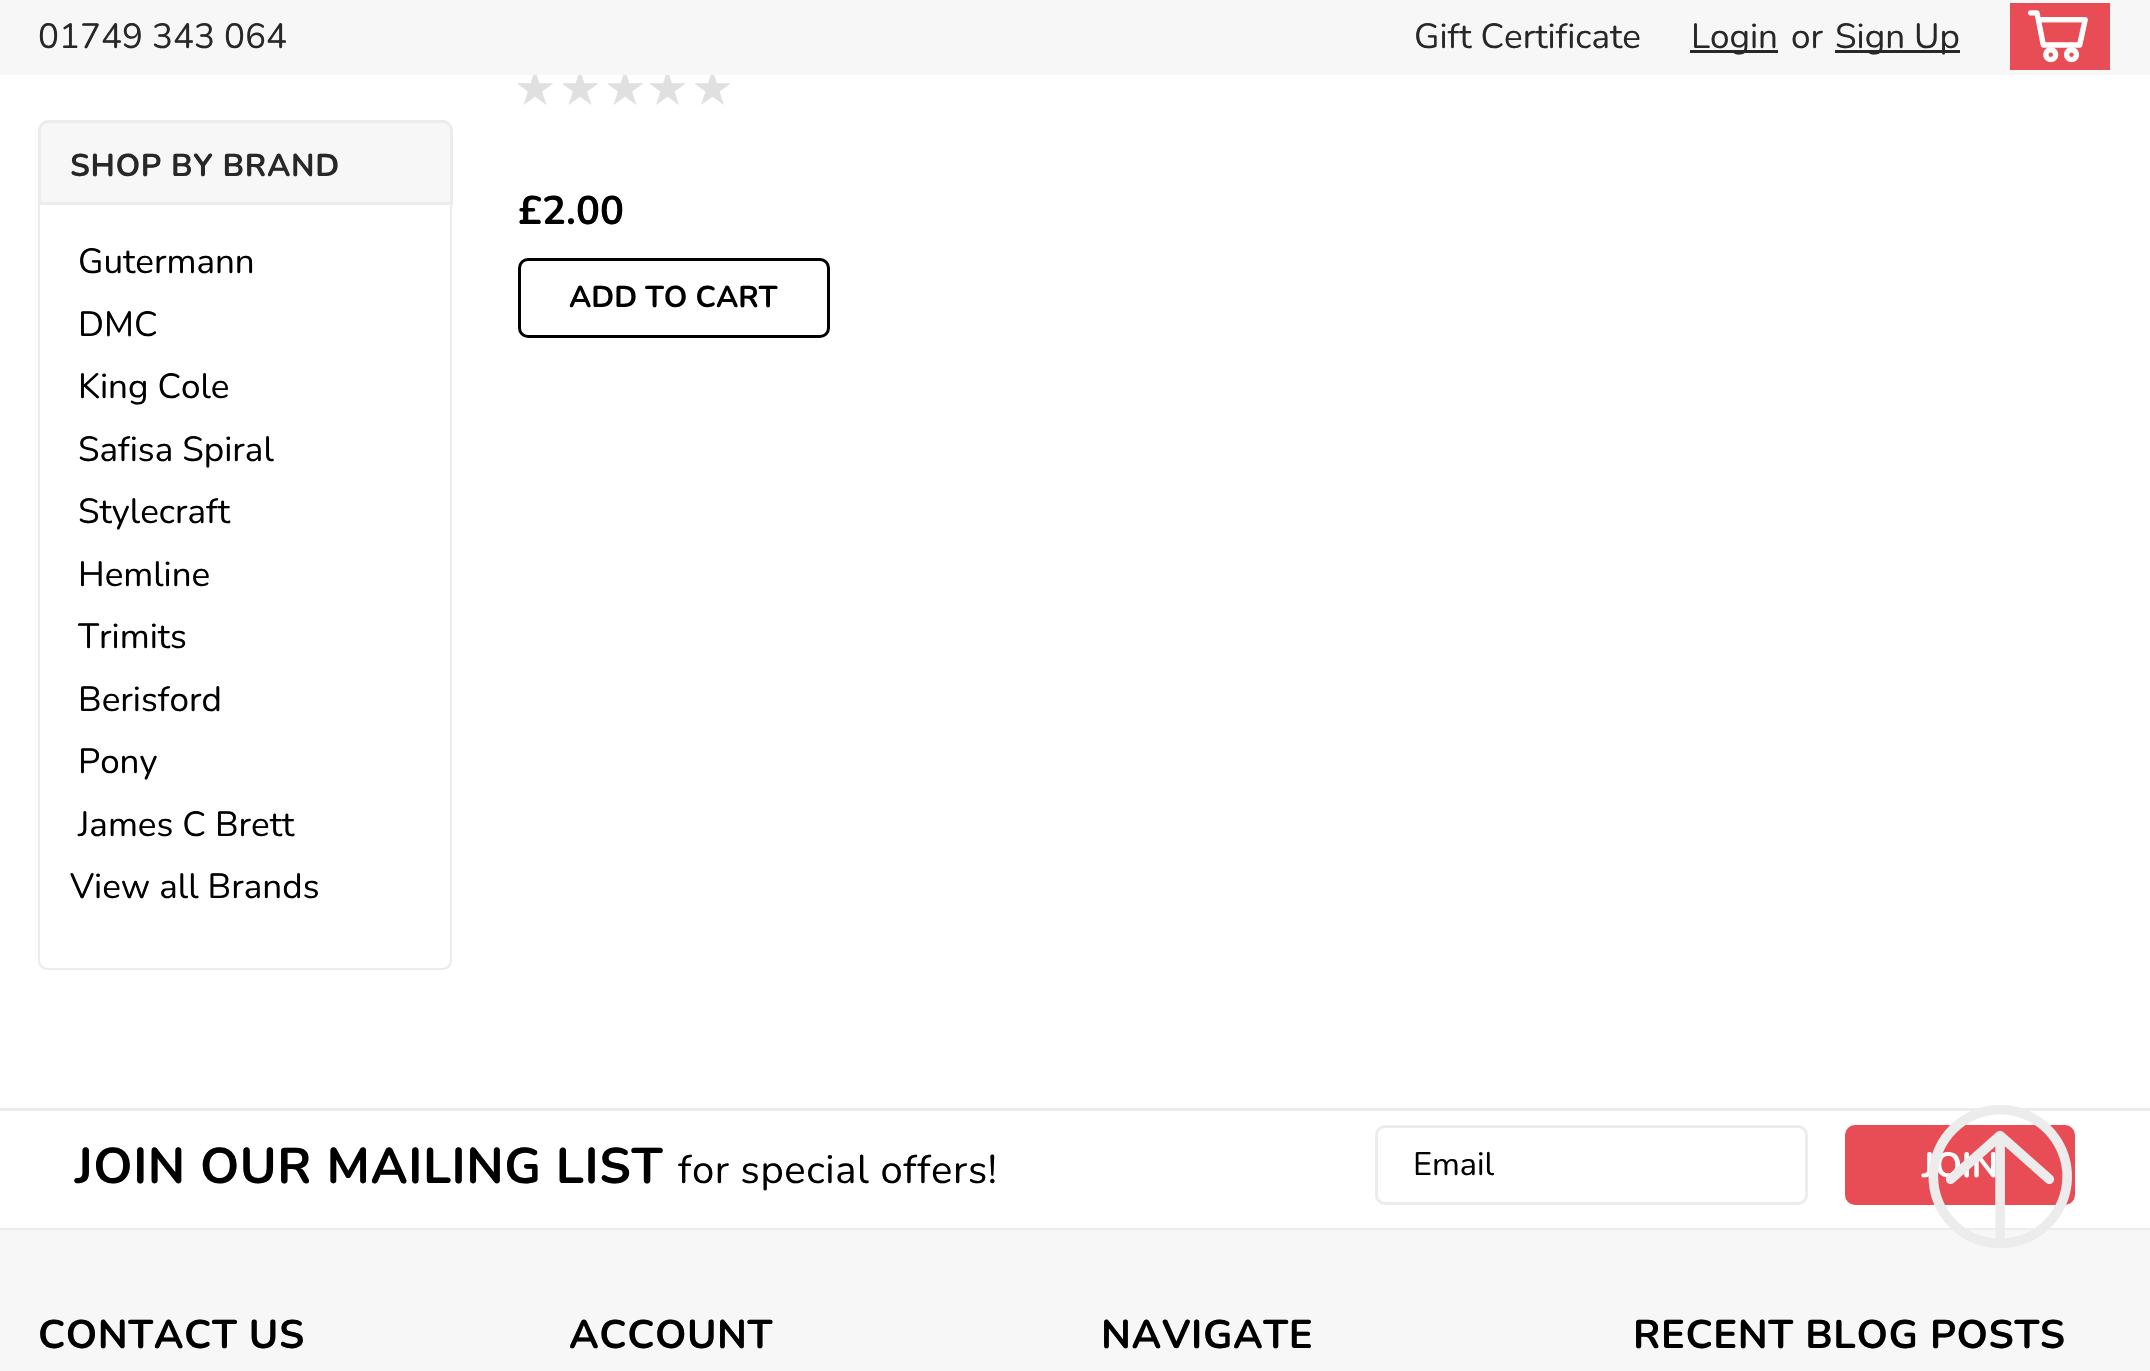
void draw(SkCanvas* canvas) {
  SkPaint paint;
  paint.setAntiAlias(true);
  auto face = [&](const char* family, int weight, float size, bool italic = false) {
    SkFontStyle style(weight, SkFontStyle::kNormal_Width,
      italic ? SkFontStyle::kItalic_Slant : SkFontStyle::kUpright_Slant);
    SkFont result(fontMgr->matchFamilyStyle(family, style), size);
    result.setSubpixel(true);
    return result;
  };
  auto writeSpaced = [&](const char* s, float x, float y, const SkFont& font, const SkPaint& ink, float letter, float word) {
    std::vector<SkGlyphID> glyphs(font.countText(s, strlen(s), SkTextEncoding::kUTF8));
    std::vector<float> xs(glyphs.size());
    font.textToGlyphs(s, strlen(s), SkTextEncoding::kUTF8, glyphs);
    font.getXPos(glyphs, xs, x);
    float extra = 0;
    for (size_t i = 0; i < glyphs.size(); i++) {
      xs[i] += extra;
      extra += letter + word * (glyphs[i] == font.unicharToGlyph(' '));
    }
    canvas->drawTextBlob(SkTextBlob::MakeFromPosHGlyphs(glyphs, xs, y, font), 0, 0, ink);
  };
  auto paste = [&](const char* path, float x, float y, float w, float h) {
    auto image = SkImages::DeferredFromEncodedData(SkData::MakeFromFileName(path));
    canvas->drawImageRect(image, SkRect::MakeXYWH(x, y, w, h), SkSamplingOptions());
  };
  auto shape = [&](const char* data, bool evenOdd = false) {
    SkPath result = *SkParsePath::FromSVGString(data);
    if (evenOdd) result.setFillType(SkPathFillType::kEvenOdd);
    return result;
  };
  canvas->clear(0xffffffff);
  {
    const struct { float x, y, w, h; SkColor color; } items[] = {
      {0, 0, 2150, 75, 0xfff7f7f7},
      {1690, 50, 88, 3, 0xff282828},
      {1835, 50, 125, 3, 0xff282828},
      {2010, 3, 100, 67, 0xffe84d56},
    };
    for (auto [x, y, w, h, color] : items) {
      paint.setColor(color);
      canvas->drawRect(SkRect::MakeXYWH(x, y, w, h), paint);
    }
  }
  paste("img/1.png", 2028, 10, 60, 53);
  paint.setColor(0xfff7f7f7);
  canvas->drawPath(shape("M48 121.5H443C447.5 121.5 451.5 125.5 451.5 130V203.5H39.5V130C39.5 125.5 43.5 121.5 48 121.5Z"), paint);
  paint.setStroke(true);
  paint.setStrokeWidth(3);
  paint.setColor(0xffececec);
  canvas->drawPath(shape("M48 121.5H443C447.5 121.5 451.5 125.5 451.5 130V203.5H39.5V130C39.5 125.5 43.5 121.5 48 121.5Z"), paint);
  paint.setStroke(false);
  canvas->drawPath(shape("M38 205H452V960C452 966 448 970 442 970H48C42 970 38 966 38 960ZM40 205H450V960C450 964 447 968 442 968H48C43 968 40 964 40 960Z", true), paint);
  paste("img/2.png", 518, 75, 35, 30);
  paste("img/2.png", 563, 75, 35, 30);
  paste("img/2.png", 608, 75, 35, 30);
  paste("img/3.png", 650, 75, 35, 30);
  paste("img/3.png", 695, 75, 35, 30);
  paint.setStroke(true);
  paint.setColor(0xff000000);
  canvas->drawRoundRect(SkRect::MakeXYWH(519.5f, 259.5f, 309, 77), 8.5f, 8.5f, paint);
  paint.setStroke(false);
  paint.setColor(0xffececec);
  canvas->drawRect(SkRect::MakeXYWH(0, 1108, 2150, 3), paint);
  canvas->drawRect(SkRect::MakeXYWH(0, 1228, 2150, 2), paint);
  paint.setStroke(true);
  canvas->drawRoundRect(SkRect::MakeXYWH(1376.5f, 1126.5f, 430, 77), 8.5f, 8.5f, paint);
  paint.setStroke(false);
  paint.setColor(0xffe84d56);
  canvas->drawRoundRect(SkRect::MakeXYWH(1846.5f, 1126.5f, 227, 77), 8.5f, 8.5f, paint);
  paint.setStroke(true);
  canvas->drawRoundRect(SkRect::MakeXYWH(1846.5f, 1126.5f, 227, 77), 8.5f, 8.5f, paint);
  paint.setStroke(false);
  paint.setColor(0xfff7f7f7);
  canvas->drawRect(SkRect::MakeXYWH(0, 1230, 2150, 141), paint);
  auto f0 = face("Nunito", 400, 35);
  paint.setColor(0xff282828);
  {
    const struct { const char* s; float x, y; } items[] = {
      {"01749 343 064", 38, 48},
      {"Gift Certificate", 1414, 48},
      {"Login", 1691, 48},
      {"or", 1791, 48},
      {"Sign Up", 1835, 48},
    };
    for (auto [s, x, y] : items) {
      canvas->drawString(s, x, y, f0, paint);
    }
  }
  auto f1 = face("Nunito", 700, 31.5f);
  writeSpaced("SHOP BY BRAND", 70, 176, f1, paint, 0.6f, 0);
  paint.setColor(0xff000000);
  {
    const struct { const char* s; float x, y; } items[] = {
      {"Gutermann", 78, 273},
      {"DMC", 78, 336},
      {"King Cole", 78, 398},
      {"Safisa Spiral", 78, 461},
      {"Stylecraft", 78, 523},
      {"Hemline", 78, 586},
      {"Trimits", 78, 648},
      {"Berisford", 78, 711},
      {"Pony", 78, 773},
      {"James C Brett", 78, 836},
      {"View all Brands", 70, 898},
    };
    for (auto [s, x, y] : items) {
      canvas->drawString(s, x, y, f0, paint);
    }
  }
  auto f2 = face("Nunito", 700, 40);
  canvas->drawString("£2.00", 518, 224, f2, paint);
  auto f3 = face("Nunito", 700, 30);
  canvas->drawString("ADD TO CART", 569, 307, f3, paint);
  auto f4 = face("Nunito", 700, 50);
  writeSpaced("JOIN OUR MAILING LIST", 75, 1183, f4, paint, 0.6f, 0);
  auto f5 = face("Nunito", 400, 40);
  writeSpaced("for special offers!", 678, 1183, f5, paint, 0.6f, 0);
  auto f6 = face("Nunito", 400, 32.5f);
  canvas->drawString("Email", 1413, 1175, f6, paint);
  auto f7 = face("Nunito", 700, 35);
  paint.setColor(0xffffffff);
  canvas->drawString("JOIN", 1922, 1177, f7, paint);
  paste("img/4.png", 1928, 1105, 144, 143);
  paint.setColor(0xff000000);
  {
    const struct { const char* s; float x, y; } items[] = {
      {"CONTACT US", 38, 1348},
      {"ACCOUNT", 569, 1348},
      {"NAVIGATE", 1101, 1348},
      {"RECENT BLOG POSTS", 1633, 1348},
    };
    for (auto [s, x, y] : items) {
      writeSpaced(s, x, y, f2, paint, 0.6f, 0);
    }
  }
}
